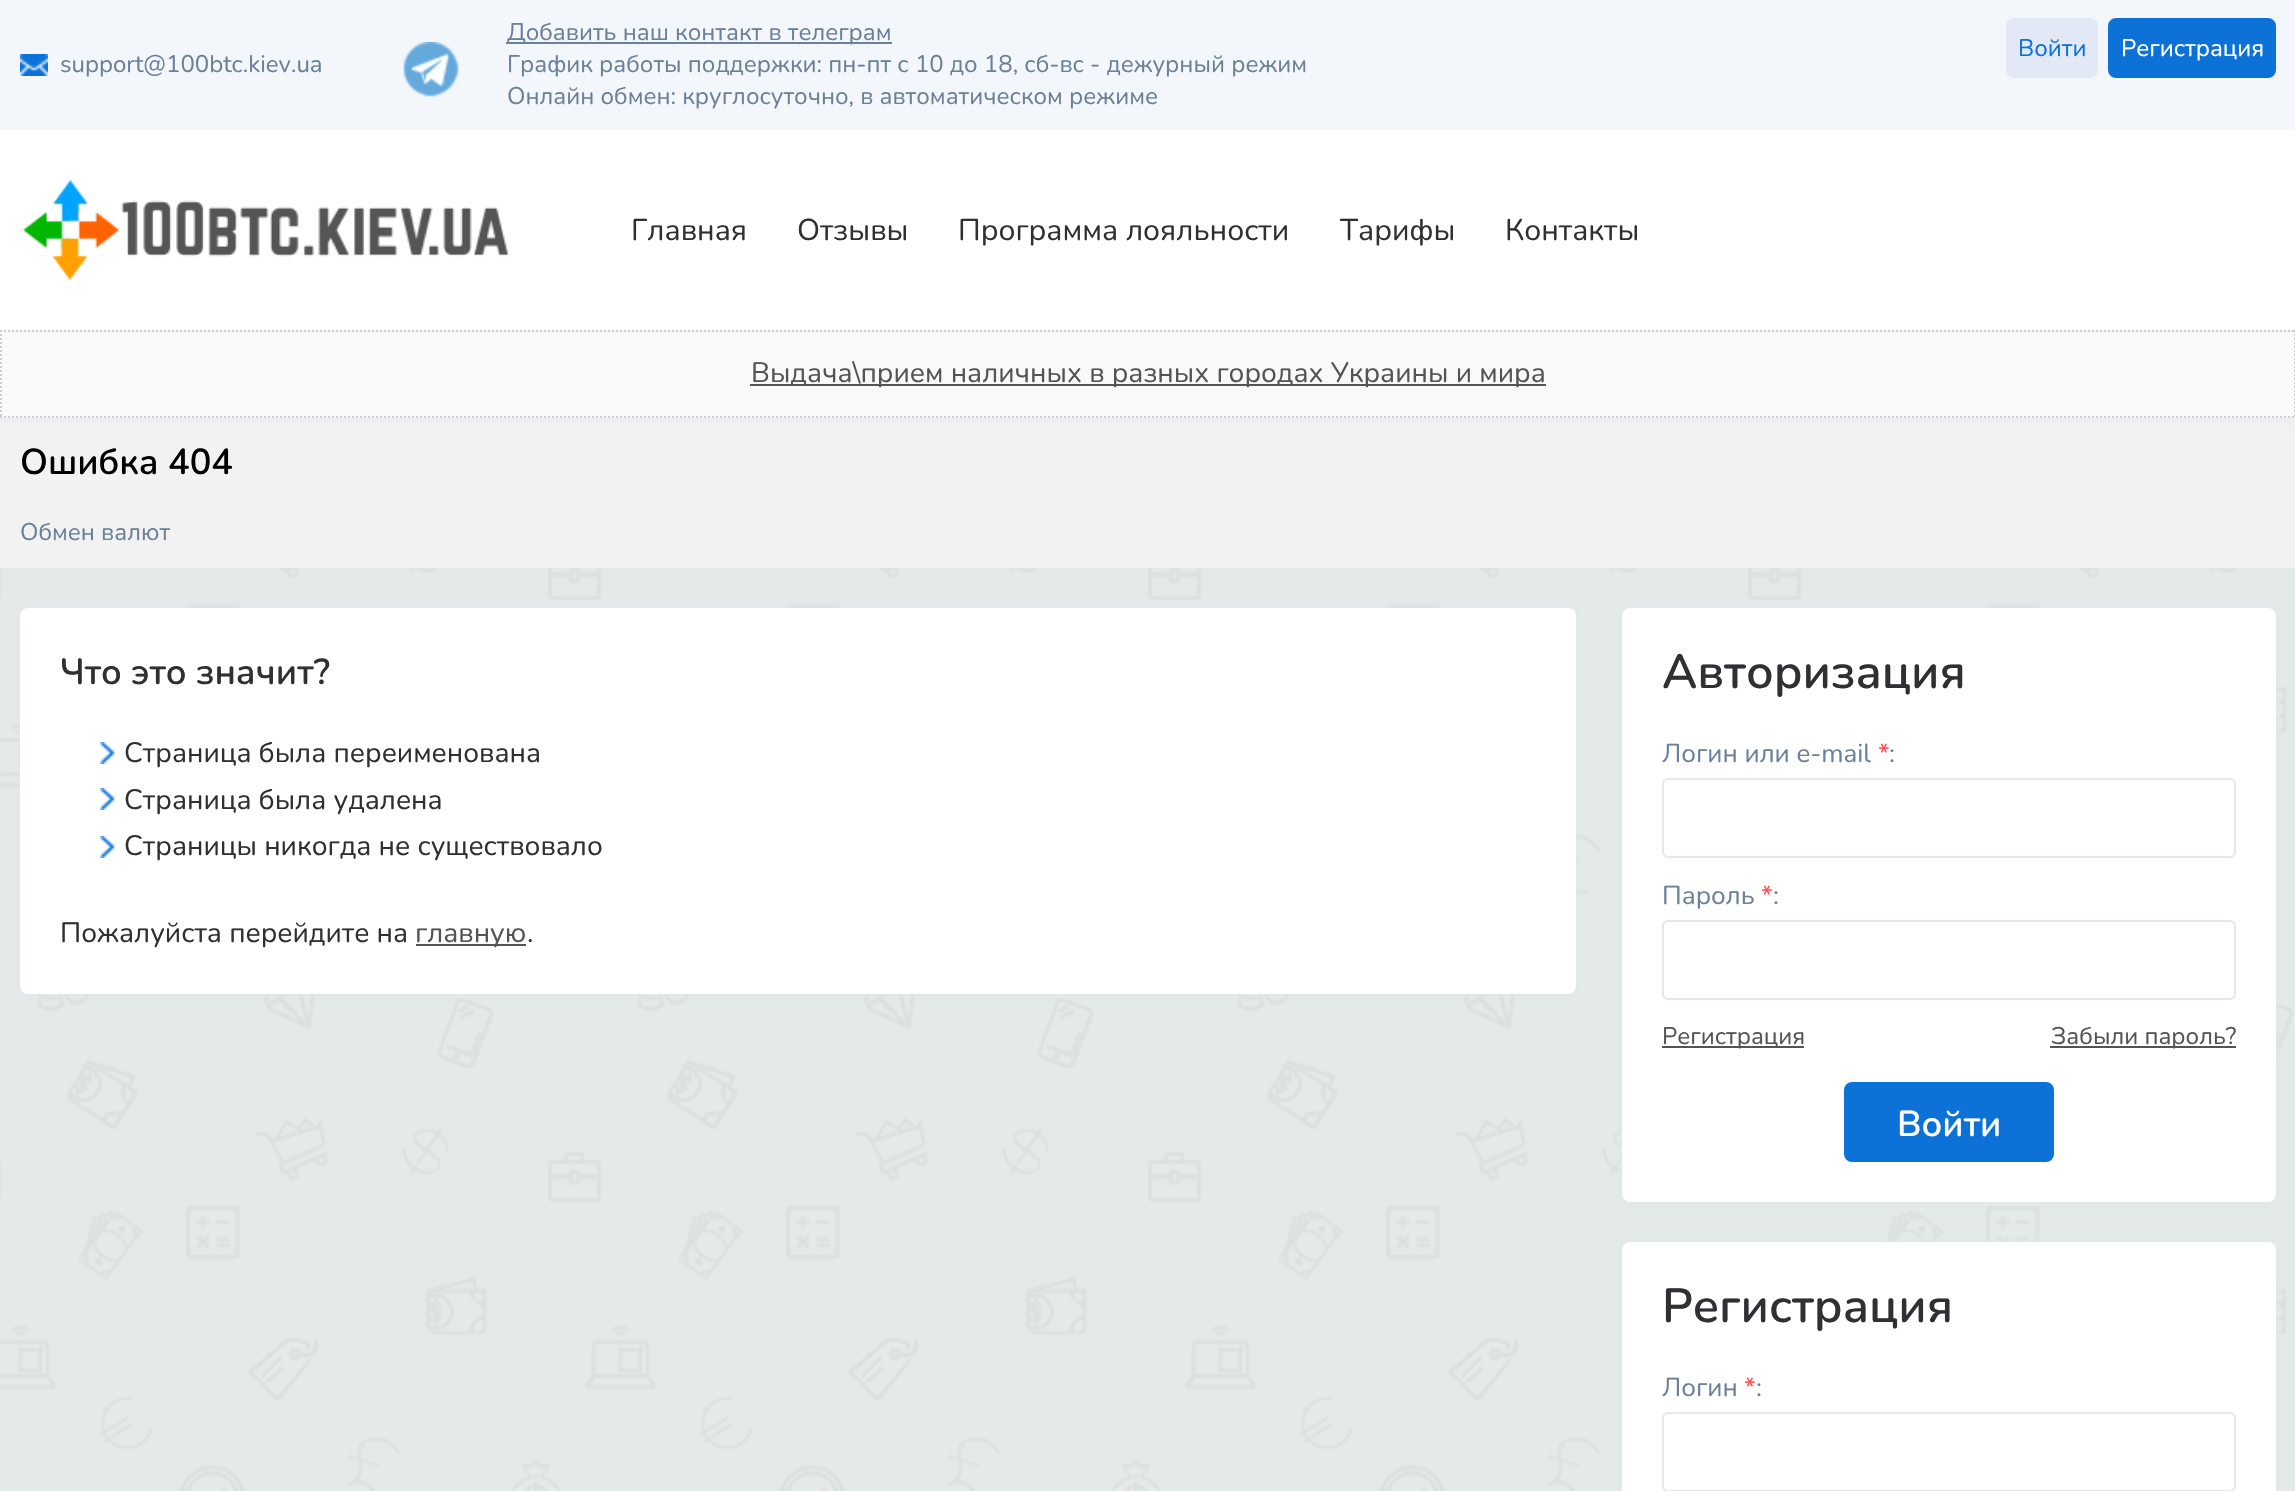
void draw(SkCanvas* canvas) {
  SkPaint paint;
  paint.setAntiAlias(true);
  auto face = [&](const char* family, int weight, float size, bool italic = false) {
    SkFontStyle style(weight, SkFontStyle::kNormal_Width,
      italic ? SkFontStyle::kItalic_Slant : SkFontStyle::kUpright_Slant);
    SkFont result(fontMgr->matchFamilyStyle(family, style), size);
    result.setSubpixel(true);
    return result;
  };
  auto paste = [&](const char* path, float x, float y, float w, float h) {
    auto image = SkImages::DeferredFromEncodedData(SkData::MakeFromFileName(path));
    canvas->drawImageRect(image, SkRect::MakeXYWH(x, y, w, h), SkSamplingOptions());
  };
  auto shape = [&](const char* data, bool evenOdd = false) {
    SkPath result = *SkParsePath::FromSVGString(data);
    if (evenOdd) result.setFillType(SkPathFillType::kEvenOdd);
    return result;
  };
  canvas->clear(0xffffffff);
  paste("img/1.png", 0, 568, 2295, 923);
  paint.setColor(0xfff2f2f2);
  canvas->drawRect(SkRect::MakeXYWH(0, 418, 2295, 150), paint);
  paint.setColor(0xffe1e9f2);
  paint.setMaskFilter(SkMaskFilter::MakeBlur(kNormal_SkBlurStyle, 5));
  canvas->drawRect(SkRect::MakeXYWH(0, 130, 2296, 288), paint);
  paint.setMaskFilter(nullptr);
  paint.setColor(0xfff3f7fc);
  canvas->drawRect(SkRect::MakeXYWH(0, 0, 2295, 130), paint);
  paste("img/2.png", 20, 54, 28, 22);
  paste("img/3.png", 403, 42, 56, 55);
  paint.setColor(0xff6b8199);
  canvas->drawRect(SkRect::MakeXYWH(506, 42, 386, 2), paint);
  paint.setColor(0xffe2e8f6);
  canvas->drawRoundRect(SkRect::MakeXYWH(2007, 19, 90, 58), 7, 7, paint);
  paint.setStroke(true);
  paint.setStrokeWidth(2);
  canvas->drawRoundRect(SkRect::MakeXYWH(2007, 19, 90, 58), 7, 7, paint);
  paint.setStroke(false);
  paint.setColor(0xff0c72d8);
  canvas->drawRoundRect(SkRect::MakeXYWH(2109, 19, 166, 58), 7, 7, paint);
  paint.setStroke(true);
  canvas->drawRoundRect(SkRect::MakeXYWH(2109, 19, 166, 58), 7, 7, paint);
  paint.setStroke(false);
  paint.setColor(0xffffffff);
  canvas->drawRect(SkRect::MakeXYWH(0, 130, 2295, 200), paint);
  paste("img/4.png", 23, 180, 485, 100);
  paint.setColor(0xfff9f9f9);
  canvas->drawRect(SkRect::MakeXYWH(0, 330, 2295, 88), paint);
  paint.setStroke(true);
  paint.setColor(0xffcccccc);
  paint.setPathEffect(SkDashPathEffect::Make({{2, 2}}, 0));
  canvas->drawPath(shape("M0 331H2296"), paint);
  paint.setPathEffect(nullptr);
  paint.setPathEffect(SkDashPathEffect::Make({{2, 2}}, 0));
  canvas->drawPath(shape("M2295 330V418"), paint);
  paint.setPathEffect(nullptr);
  paint.setPathEffect(SkDashPathEffect::Make({{2, 2}}, 0));
  canvas->drawPath(shape("M0 417H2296"), paint);
  paint.setPathEffect(nullptr);
  paint.setPathEffect(SkDashPathEffect::Make({{2, 2}}, 0));
  canvas->drawPath(shape("M1 330V418"), paint);
  paint.setPathEffect(nullptr);
  paint.setStroke(false);
  paint.setColor(0xff545454);
  canvas->drawRect(SkRect::MakeXYWH(750, 384, 796, 2), paint);
  paint.setColor(0xffe1e9f2);
  paint.setMaskFilter(SkMaskFilter::MakeBlur(kNormal_SkBlurStyle, 5));
  canvas->drawRoundRect(SkRect::MakeXYWH(20, 608, 1556, 386), 8, 8, paint);
  paint.setMaskFilter(nullptr);
  paint.setColor(0xffffffff);
  canvas->drawRoundRect(SkRect::MakeXYWH(20, 608, 1556, 386), 8, 8, paint);
  paste("img/5.png", 100, 742, 15, 22);
  paste("img/5.png", 100, 788, 15, 22);
  paste("img/5.png", 100, 836, 15, 22);
  paint.setColor(0xff545454);
  canvas->drawRect(SkRect::MakeXYWH(416, 944, 110, 2), paint);
  paint.setColor(0xffe1e9f2);
  paint.setMaskFilter(SkMaskFilter::MakeBlur(kNormal_SkBlurStyle, 5));
  canvas->drawRoundRect(SkRect::MakeXYWH(1622, 608, 654, 594), 8, 8, paint);
  paint.setMaskFilter(nullptr);
  paint.setColor(0xffffffff);
  canvas->drawRoundRect(SkRect::MakeXYWH(1622, 608, 654, 594), 8, 8, paint);
  paint.setStroke(true);
  paint.setColor(0xffe4e8ee);
  canvas->drawRoundRect(SkRect::MakeXYWH(1663, 779, 572, 78), 5, 5, paint);
  canvas->drawRoundRect(SkRect::MakeXYWH(1663, 921, 572, 78), 5, 5, paint);
  paint.setStroke(false);
  paint.setColor(0xff545454);
  canvas->drawRect(SkRect::MakeXYWH(1662, 1046, 142, 2), paint);
  canvas->drawRect(SkRect::MakeXYWH(2050, 1046, 186, 2), paint);
  paint.setColor(0xff0c72d8);
  canvas->drawRoundRect(SkRect::MakeXYWH(1845, 1083, 208, 78), 7, 7, paint);
  paint.setStroke(true);
  canvas->drawRoundRect(SkRect::MakeXYWH(1845, 1083, 208, 78), 7, 7, paint);
  paint.setStroke(false);
  paint.setColor(0xffe1e9f2);
  paint.setMaskFilter(SkMaskFilter::MakeBlur(kNormal_SkBlurStyle, 5));
  canvas->drawRoundRect(SkRect::MakeXYWH(1622, 1242, 654, 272), 8, 8, paint);
  paint.setMaskFilter(nullptr);
  paint.setColor(0xffffffff);
  canvas->drawRoundRect(SkRect::MakeXYWH(1622, 1242, 654, 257), 8, 8, paint);
  paint.setStroke(true);
  paint.setColor(0xffe4e8ee);
  canvas->drawRoundRect(SkRect::MakeXYWH(1663, 1413, 572, 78), 5, 5, paint);
  auto f0 = face("Nunito", 400, 24);
  paint.setStroke(false);
  paint.setColor(0xff6b8199);
  {
    const struct { const char* s; float x, y; } items[] = {
      {"support@100btc.kiev.ua", 60, 72},
      {"Добавить наш контакт в телеграм", 507, 40},
      {"График работы поддержки: пн-пт с 10 до 18, сб-вс - дежурный режим", 507, 72},
      {"Онлайн обмен: круглосуточно, в автоматическом режиме", 507, 104},
    };
    for (auto [s, x, y] : items) {
      canvas->drawString(s, x, y, f0, paint);
    }
  }
  paint.setColor(0xff0c72d8);
  canvas->drawString("Войти", 2018, 56, f0, paint);
  paint.setColor(0xffffffff);
  canvas->drawString("Регистрация", 2121, 56, f0, paint);
  auto f1 = face("Nunito", 400, 30);
  paint.setColor(0xff2e3033);
  {
    const struct { const char* s; float x, y; } items[] = {
      {"Главная", 631, 240},
      {"Отзывы", 797, 240},
      {"Программа лояльности", 958, 240},
      {"Тарифы", 1340, 240},
      {"Контакты", 1505, 240},
    };
    for (auto [s, x, y] : items) {
      canvas->drawString(s, x, y, f1, paint);
    }
  }
  auto f2 = face("Nunito", 400, 28);
  paint.setColor(0xff545454);
  canvas->drawString("Выдача\\прием наличных в разных городах Украины и мира", 751, 382, f2, paint);
  auto f3 = face("Nunito", 600, 36);
  paint.setColor(0xff000000);
  canvas->drawString("Ошибка 404", 20, 474, f3, paint);
  paint.setColor(0xff6b8199);
  canvas->drawString("Обмен валют", 20, 540, f0, paint);
  paint.setColor(0xff2e3033);
  canvas->drawString("Что это значит?", 60, 684, f3, paint);
  {
    const struct { const char* s; float x, y; } items[] = {
      {"Страница была переименована", 124, 762},
      {"Страница была удалена", 124, 809},
      {"Страницы никогда не существовало", 124, 855},
      {"Пожалуйста перейдите на", 60, 942},
    };
    for (auto [s, x, y] : items) {
      canvas->drawString(s, x, y, f2, paint);
    }
  }
  paint.setColor(0xff545454);
  canvas->drawString("главную", 415, 942, f2, paint);
  paint.setColor(0xff2e3033);
  canvas->drawString(".", 527, 942, f2, paint);
  auto f4 = face("Nunito", 600, 48);
  canvas->drawString("Авторизация", 1662, 688, f4, paint);
  auto f5 = face("Nunito", 400, 26);
  paint.setColor(0xff6b8199);
  canvas->drawString("Логин или e-mail", 1662, 762, f5, paint);
  paint.setColor(0xffff4e4e);
  canvas->drawString("*", 1878, 762, f5, paint);
  paint.setColor(0xff6b8199);
  canvas->drawString(":", 1889, 762, f5, paint);
  canvas->drawString("Пароль", 1662, 904, f5, paint);
  paint.setColor(0xffff4e4e);
  canvas->drawString("*", 1761, 904, f5, paint);
  paint.setColor(0xff6b8199);
  canvas->drawString(":", 1773, 904, f5, paint);
  paint.setColor(0xff545454);
  canvas->drawString("Регистрация", 1662, 1044, f0, paint);
  canvas->drawString("Забыли пароль?", 2051, 1044, f0, paint);
  paint.setColor(0xffffffff);
  canvas->drawString("Войти", 1897, 1136, f3, paint);
  paint.setColor(0xff2e3033);
  canvas->drawString("Регистрация", 1662, 1322, f4, paint);
  paint.setColor(0xff6b8199);
  canvas->drawString("Логин", 1662, 1396, f5, paint);
  paint.setColor(0xffff4e4e);
  canvas->drawString("*", 1744, 1396, f5, paint);
  paint.setColor(0xff6b8199);
  canvas->drawString(":", 1756, 1396, f5, paint);
}
